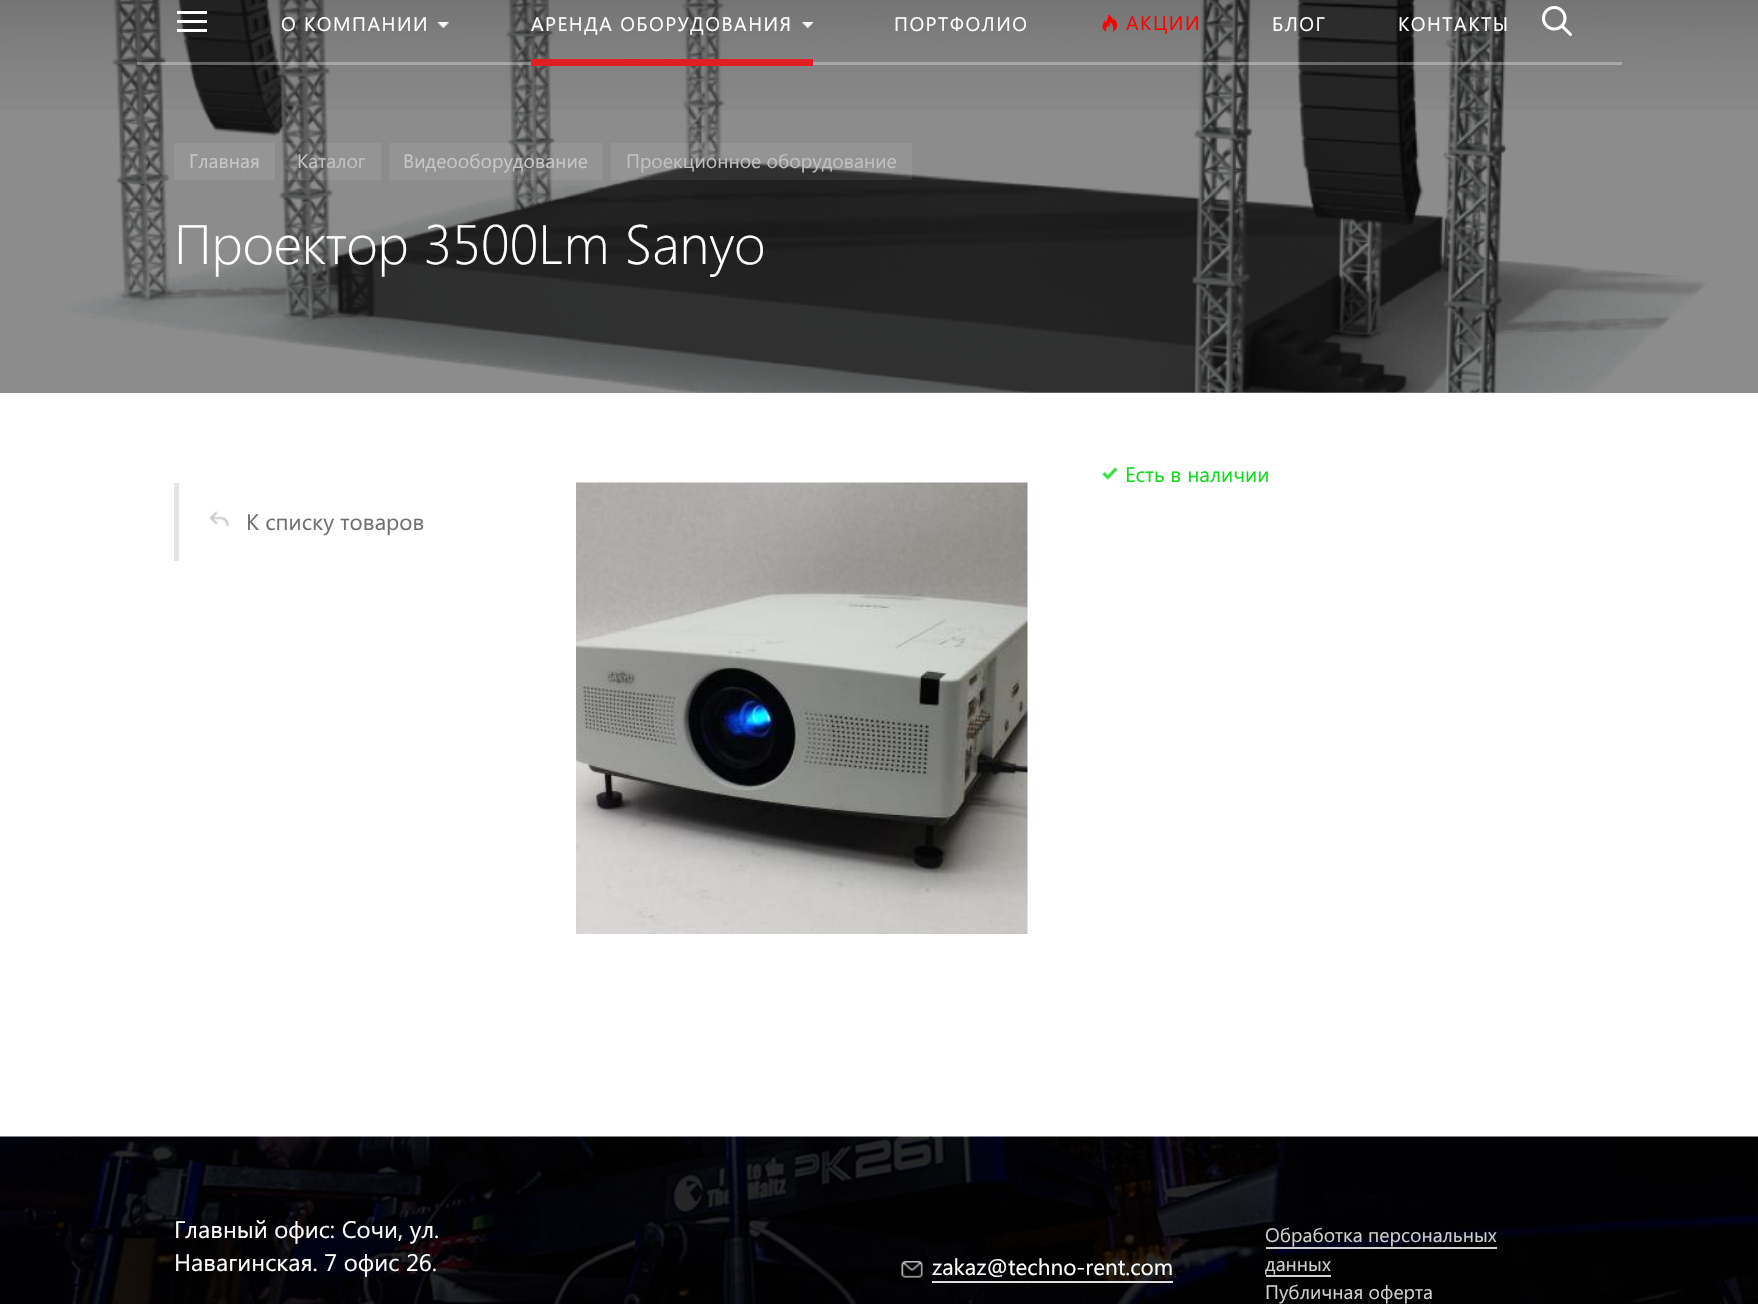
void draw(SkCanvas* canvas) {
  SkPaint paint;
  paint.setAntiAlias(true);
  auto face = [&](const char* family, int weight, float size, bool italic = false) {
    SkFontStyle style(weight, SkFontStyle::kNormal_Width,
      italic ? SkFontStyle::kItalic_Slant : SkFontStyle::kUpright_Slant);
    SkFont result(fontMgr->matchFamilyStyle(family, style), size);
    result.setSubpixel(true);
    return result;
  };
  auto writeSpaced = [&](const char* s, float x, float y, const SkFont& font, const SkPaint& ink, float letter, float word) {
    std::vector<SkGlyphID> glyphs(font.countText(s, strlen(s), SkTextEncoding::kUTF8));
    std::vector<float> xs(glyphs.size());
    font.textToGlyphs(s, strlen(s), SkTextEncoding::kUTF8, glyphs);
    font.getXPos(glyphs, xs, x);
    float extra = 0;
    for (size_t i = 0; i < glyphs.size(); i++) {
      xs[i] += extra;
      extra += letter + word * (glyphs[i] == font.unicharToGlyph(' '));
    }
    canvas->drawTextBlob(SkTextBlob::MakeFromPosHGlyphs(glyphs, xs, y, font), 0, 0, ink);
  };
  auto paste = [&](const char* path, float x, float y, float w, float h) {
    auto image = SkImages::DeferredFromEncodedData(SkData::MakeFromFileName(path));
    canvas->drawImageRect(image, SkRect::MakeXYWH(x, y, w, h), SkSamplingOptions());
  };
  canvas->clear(0xffffffff);
  paint.setColor(0xff8c8c8c);
  canvas->drawRect(SkRect::MakeXYWH(0, 0, 1758, 393), paint);
  paste("img/5.png", 48, 0, 1662, 393);
  paste("img/6.png", 0, 0, 1758, 110);
  {
    const struct { float x, y, w, h; SkColor color; } items[] = {
      {137, 62, 1485, 3, 0x4dffffff},
      {177, 11, 30, 3, 0xffffffff},
      {177, 20, 30, 3, 0xffffffff},
      {177, 29, 30, 3, 0xffffffff},
    };
    for (auto [x, y, w, h, color] : items) {
      paint.setColor(color);
      canvas->drawRect(SkRect::MakeXYWH(x, y, w, h), paint);
    }
  }
  paste("img/1.png", 438, 22, 11, 6);
  paste("img/2.png", 802, 22, 11, 6);
  paint.setColor(0xffe11e23);
  canvas->drawRect(SkRect::MakeXYWH(531, 59, 282, 7), paint);
  paste("img/3.png", 1102, 14, 16, 18);
  paste("img/4.png", 1542, 6, 30, 30);
  {
    const struct { float x, y, w, h; SkColor color; } items[] = {
      {174, 143, 101, 37, 0xff959595},
      {282, 143, 99, 37, 0x12ffffff},
      {389, 143, 214, 37, 0x12ffffff},
      {611, 143, 301, 37, 0x12ffffff},
    };
    for (auto [x, y, w, h, color] : items) {
      paint.setColor(color);
      canvas->drawRect(SkRect::MakeXYWH(x, y, w, h), paint);
    }
  }
  paste("img/7.png", 1102, 467, 16, 13);
  paste("img/8.png", 576, 482, 452, 452);
  paint.setColor(0xffe5e5e5);
  canvas->drawRect(SkRect::MakeXYWH(174, 483, 5, 78), paint);
  paste("img/9.png", 209, 511, 21, 15);
  paste("img/10.png", 0, 1136, 1758, 168);
  paste("img/11.png", 901, 1261, 22, 17);
  {
    const struct { float x, y, w, h; SkColor color; } items[] = {
      {932, 1281, 241, 2, 0xffdedede},
      {1266, 1247, 231, 2, 0xffcfcfcf},
      {1266, 1275, 65, 2, 0xffcfcfcf},
    };
    for (auto [x, y, w, h, color] : items) {
      paint.setColor(color);
      canvas->drawRect(SkRect::MakeXYWH(x, y, w, h), paint);
    }
  }
  auto f0 = face("Segoe UI", 400, 19.5f);
  paint.setColor(0xffffffff);
  {
    const struct { const char* s; float x, y; } items[] = {
      {"О КОМПАНИИ", 281, 31},
      {"АРЕНДА ОБОРУДОВАНИЯ", 531, 31},
      {"ПОРТФОЛИО", 894, 31},
    };
    for (auto [s, x, y] : items) {
      writeSpaced(s, x, y, f0, paint, 1.5f, 0);
    }
  }
  paint.setColor(0xffff0000);
  writeSpaced("АКЦИИ", 1126, 30, f0, paint, 1.5f, 0);
  paint.setColor(0xffffffff);
  writeSpaced("БЛОГ", 1272, 31, f0, paint, 1.5f, 0);
  writeSpaced("КОНТАКТЫ", 1398, 31, f0, paint, 1.5f, 0);
  paint.setColor(0xffc6c6c6);
  canvas->drawString("Главная", 189, 168, f0, paint);
  paint.setColor(0xffc0c0c0);
  canvas->drawString("Каталог", 297, 168, f0, paint);
  paint.setColor(0xffc6c6c6);
  canvas->drawString("Видеооборудование", 403, 168, f0, paint);
  paint.setColor(0xffc0c0c0);
  canvas->drawString("Проекционное оборудование", 626, 168, f0, paint);
  auto f1 = face("Segoe UI", 300, 55.5f);
  paint.setColor(0xffffffff);
  canvas->drawString("Проектор 3500Lm Sanyo", 174, 264, f1, paint);
  auto f2 = face("Segoe UI", 400, 21);
  paint.setColor(0xff11da1f);
  canvas->drawString("Есть в наличии", 1125, 482, f2, paint);
  auto f3 = face("Segoe UI", 400, 22.5f);
  paint.setColor(0xff707070);
  canvas->drawString("К списку товаров", 246, 530, f3, paint);
  auto f4 = face("Segoe UI", 400, 24);
  paint.setColor(0xffffffff);
  canvas->drawString("Главный офис: Сочи, ул.", 174, 1238, f4, paint);
  canvas->drawString("Навагинская. 7 офис 26.", 174, 1271, f4, paint);
  canvas->drawString("zakaz@techno-rent.com", 932, 1275, f3, paint);
  paint.setColor(0xffcfcfcf);
  {
    const struct { const char* s; float x, y; } items[] = {
      {"Обработка персональных", 1265, 1242},
      {"данных", 1265, 1271},
      {"Публичная оферта", 1265, 1299},
    };
    for (auto [s, x, y] : items) {
      canvas->drawString(s, x, y, f0, paint);
    }
  }
}
